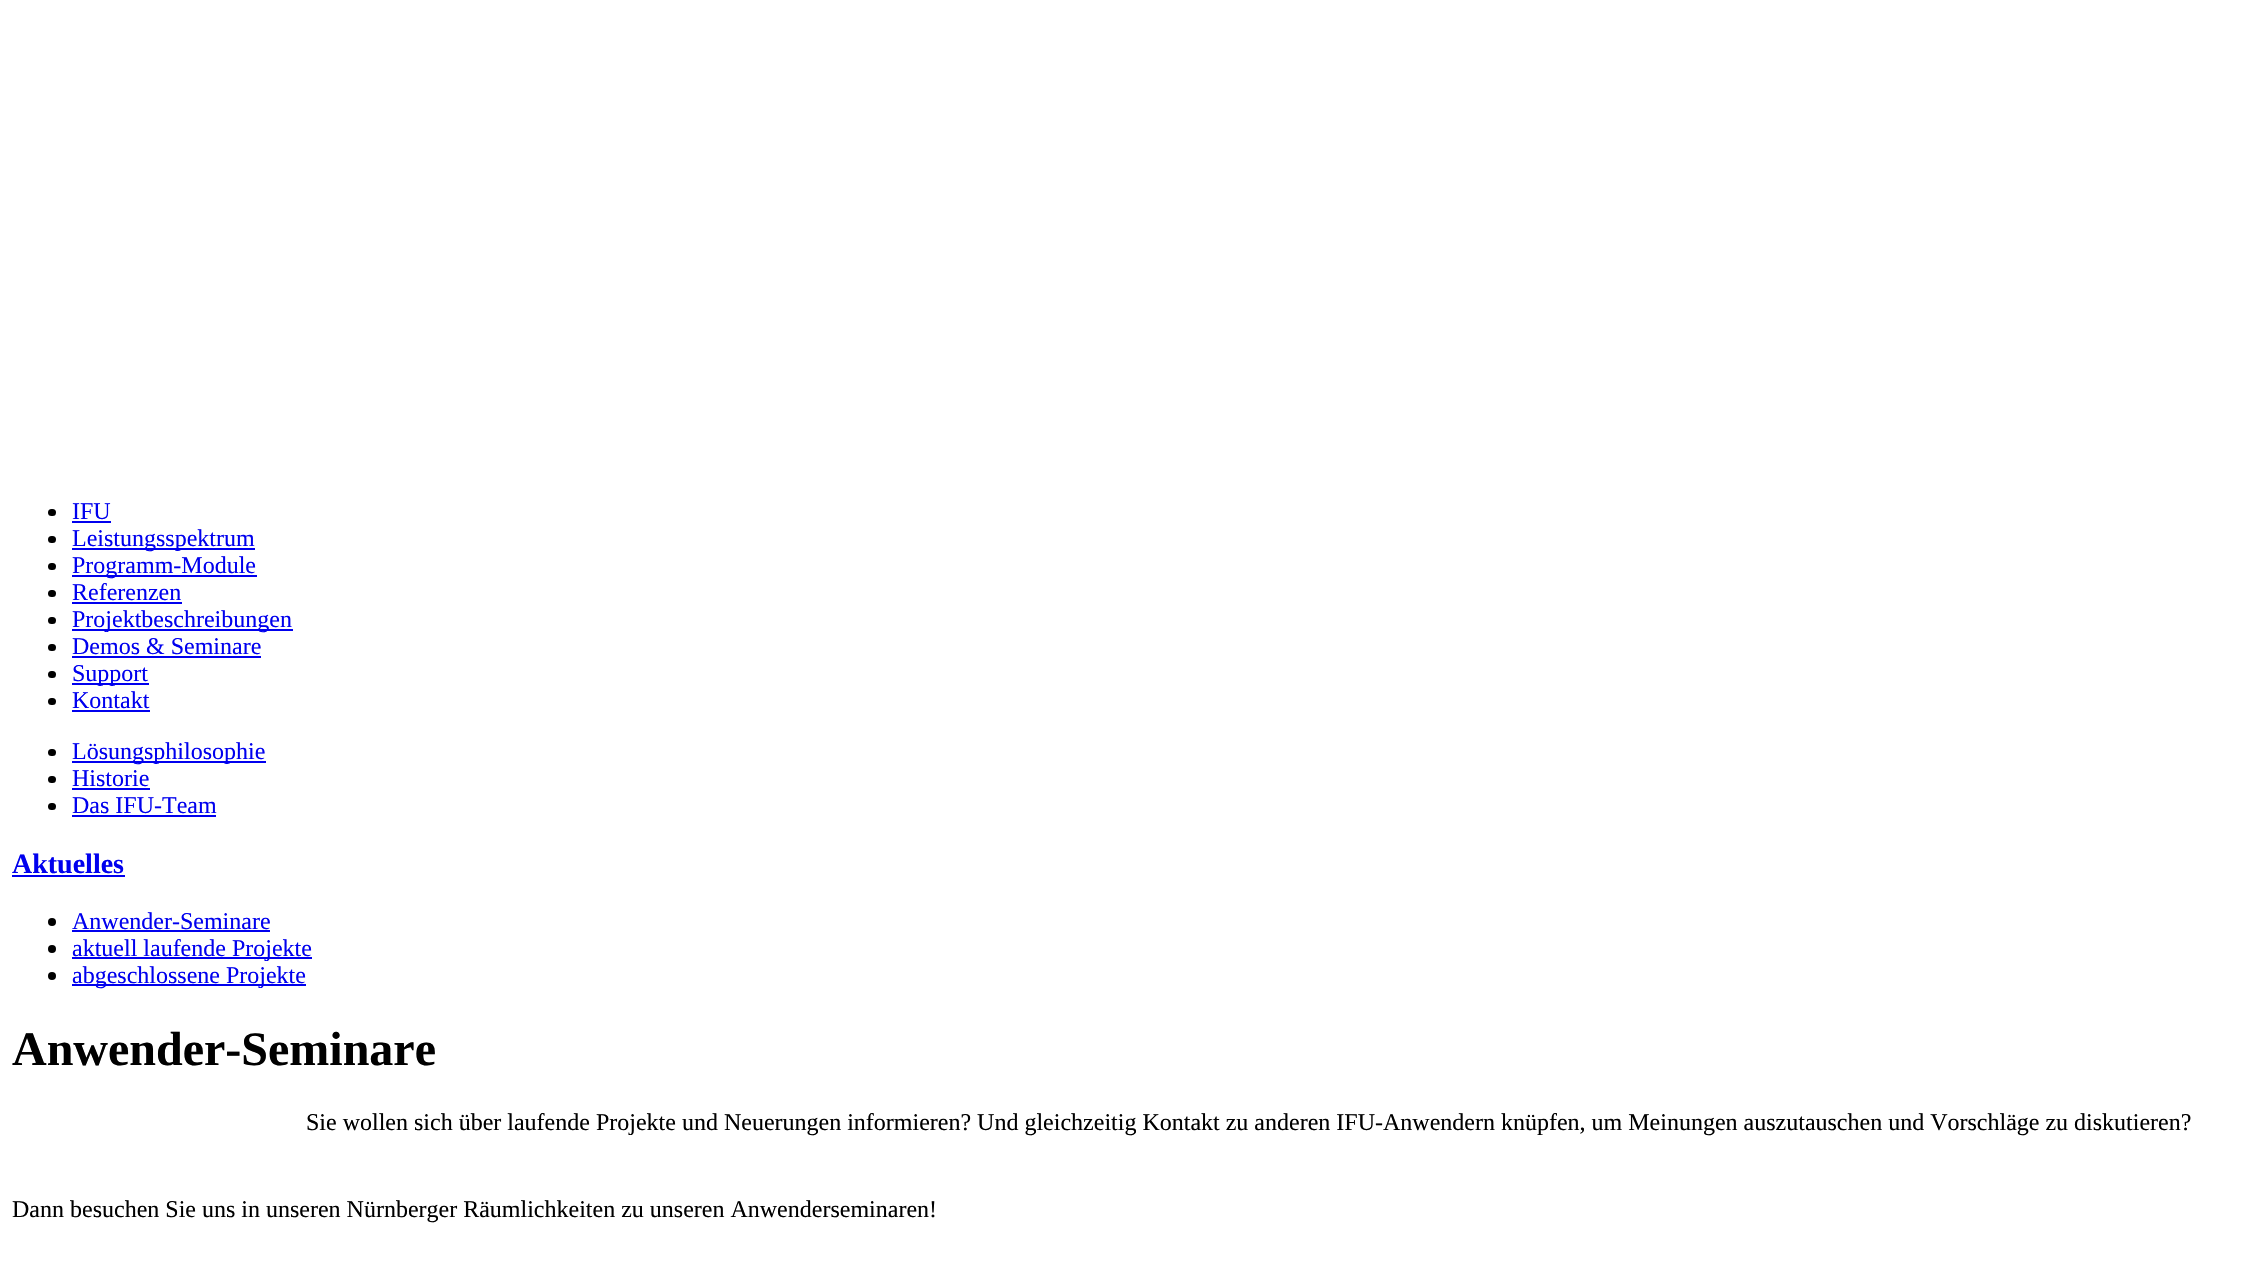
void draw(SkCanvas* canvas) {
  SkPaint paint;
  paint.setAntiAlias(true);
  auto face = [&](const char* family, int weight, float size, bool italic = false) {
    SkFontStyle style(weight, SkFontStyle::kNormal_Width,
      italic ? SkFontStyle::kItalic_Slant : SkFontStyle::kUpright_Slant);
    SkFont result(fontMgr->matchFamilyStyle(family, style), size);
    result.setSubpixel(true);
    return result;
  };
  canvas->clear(0xffffffff);
  paint.setColor(0xff000000);
  canvas->drawRoundRect(SkRect::MakeXYWH(48, 509, 8, 7), 3.5f, 3.5f, paint);
  paint.setColor(0xff0000ee);
  canvas->drawRect(SkRect::MakeXYWH(72, 521, 39, 2), paint);
  paint.setColor(0xff000000);
  canvas->drawRoundRect(SkRect::MakeXYWH(48, 536, 8, 7), 3.5f, 3.5f, paint);
  paint.setColor(0xff0000ee);
  canvas->drawRect(SkRect::MakeXYWH(72, 548, 183, 2), paint);
  paint.setColor(0xff000000);
  canvas->drawRoundRect(SkRect::MakeXYWH(48, 563, 8, 7), 3.5f, 3.5f, paint);
  paint.setColor(0xff0000ee);
  canvas->drawRect(SkRect::MakeXYWH(72, 575, 185, 2), paint);
  paint.setColor(0xff000000);
  canvas->drawRoundRect(SkRect::MakeXYWH(48, 590, 8, 7), 3.5f, 3.5f, paint);
  paint.setColor(0xff0000ee);
  canvas->drawRect(SkRect::MakeXYWH(72, 602, 110, 2), paint);
  paint.setColor(0xff000000);
  canvas->drawRoundRect(SkRect::MakeXYWH(48, 617, 8, 7), 3.5f, 3.5f, paint);
  paint.setColor(0xff0000ee);
  canvas->drawRect(SkRect::MakeXYWH(72, 629, 221, 2), paint);
  paint.setColor(0xff000000);
  canvas->drawRoundRect(SkRect::MakeXYWH(48, 644, 8, 7), 3.5f, 3.5f, paint);
  paint.setColor(0xff0000ee);
  canvas->drawRect(SkRect::MakeXYWH(72, 656, 189, 2), paint);
  paint.setColor(0xff000000);
  canvas->drawRoundRect(SkRect::MakeXYWH(48, 671, 8, 7), 3.5f, 3.5f, paint);
  paint.setColor(0xff0000ee);
  canvas->drawRect(SkRect::MakeXYWH(72, 683, 77, 2), paint);
  paint.setColor(0xff000000);
  canvas->drawRoundRect(SkRect::MakeXYWH(48, 698, 8, 7), 3.5f, 3.5f, paint);
  paint.setColor(0xff0000ee);
  canvas->drawRect(SkRect::MakeXYWH(72, 710, 78, 2), paint);
  paint.setColor(0xff000000);
  canvas->drawRoundRect(SkRect::MakeXYWH(48, 749, 8, 7), 3.5f, 3.5f, paint);
  paint.setColor(0xff0000ee);
  canvas->drawRect(SkRect::MakeXYWH(72, 761, 194, 2), paint);
  paint.setColor(0xff000000);
  canvas->drawRoundRect(SkRect::MakeXYWH(48, 776, 8, 7), 3.5f, 3.5f, paint);
  paint.setColor(0xff0000ee);
  canvas->drawRect(SkRect::MakeXYWH(72, 788, 78, 2), paint);
  paint.setColor(0xff000000);
  canvas->drawRoundRect(SkRect::MakeXYWH(48, 803, 8, 7), 3.5f, 3.5f, paint);
  paint.setColor(0xff0000ee);
  canvas->drawRect(SkRect::MakeXYWH(72, 815, 144, 2), paint);
  canvas->drawRect(SkRect::MakeXYWH(12, 875, 113, 2), paint);
  paint.setColor(0xff000000);
  canvas->drawCircle(52, 922, 4, paint);
  paint.setColor(0xff0000ee);
  canvas->drawRect(SkRect::MakeXYWH(72, 930, 198, 2), paint);
  paint.setColor(0xff000000);
  canvas->drawCircle(52, 949, 4, paint);
  paint.setColor(0xff0000ee);
  canvas->drawRect(SkRect::MakeXYWH(72, 957, 240, 2), paint);
  paint.setColor(0xff000000);
  canvas->drawCircle(52, 976, 4, paint);
  paint.setColor(0xff0000ee);
  canvas->drawRect(SkRect::MakeXYWH(72, 984, 234, 2), paint);
  auto f0 = face("Liberation Serif", 400, 24);
  {
    const struct { const char* s; float x, y; } items[] = {
      {"IFU", 72, 519},
      {"Leistungsspektrum", 72, 546},
      {"Programm-Module", 72, 573},
      {"Referenzen", 72, 600},
      {"Projektbeschreibungen", 72, 627},
      {"Demos & Seminare", 72, 654},
      {"Support", 72, 681},
      {"Kontakt", 72, 708},
      {"Lösungsphilosophie", 72, 759},
      {"Historie", 72, 786},
      {"Das IFU-Team", 72, 813},
    };
    for (auto [s, x, y] : items) {
      canvas->drawString(s, x, y, f0, paint);
    }
  }
  auto f1 = face("Liberation Serif", 700, 28);
  canvas->drawString("Aktuelles", 12, 873, f1, paint);
  {
    const struct { const char* s; float x, y; } items[] = {
      {"Anwender-Seminare", 72, 929},
      {"aktuell laufende Projekte", 72, 956},
      {"abgeschlossene Projekte", 72, 983},
    };
    for (auto [s, x, y] : items) {
      canvas->drawString(s, x, y, f0, paint);
    }
  }
  auto f2 = face("Liberation Serif", 700, 48);
  paint.setColor(0xff000000);
  canvas->drawString("Anwender-Seminare", 12, 1065, f2, paint);
  canvas->drawString("Sie wollen sich über laufende Projekte und Neuerungen informieren? Und gleichzeitig Kontakt zu anderen IFU-Anwendern knüpfen, um Meinungen auszutauschen und Vorschläge zu diskutieren?", 306, 1130, f0, paint);
  canvas->drawString("Dann besuchen Sie uns in unseren Nürnberger Räumlichkeiten zu unseren Anwenderseminaren!", 12, 1217, f0, paint);
}
